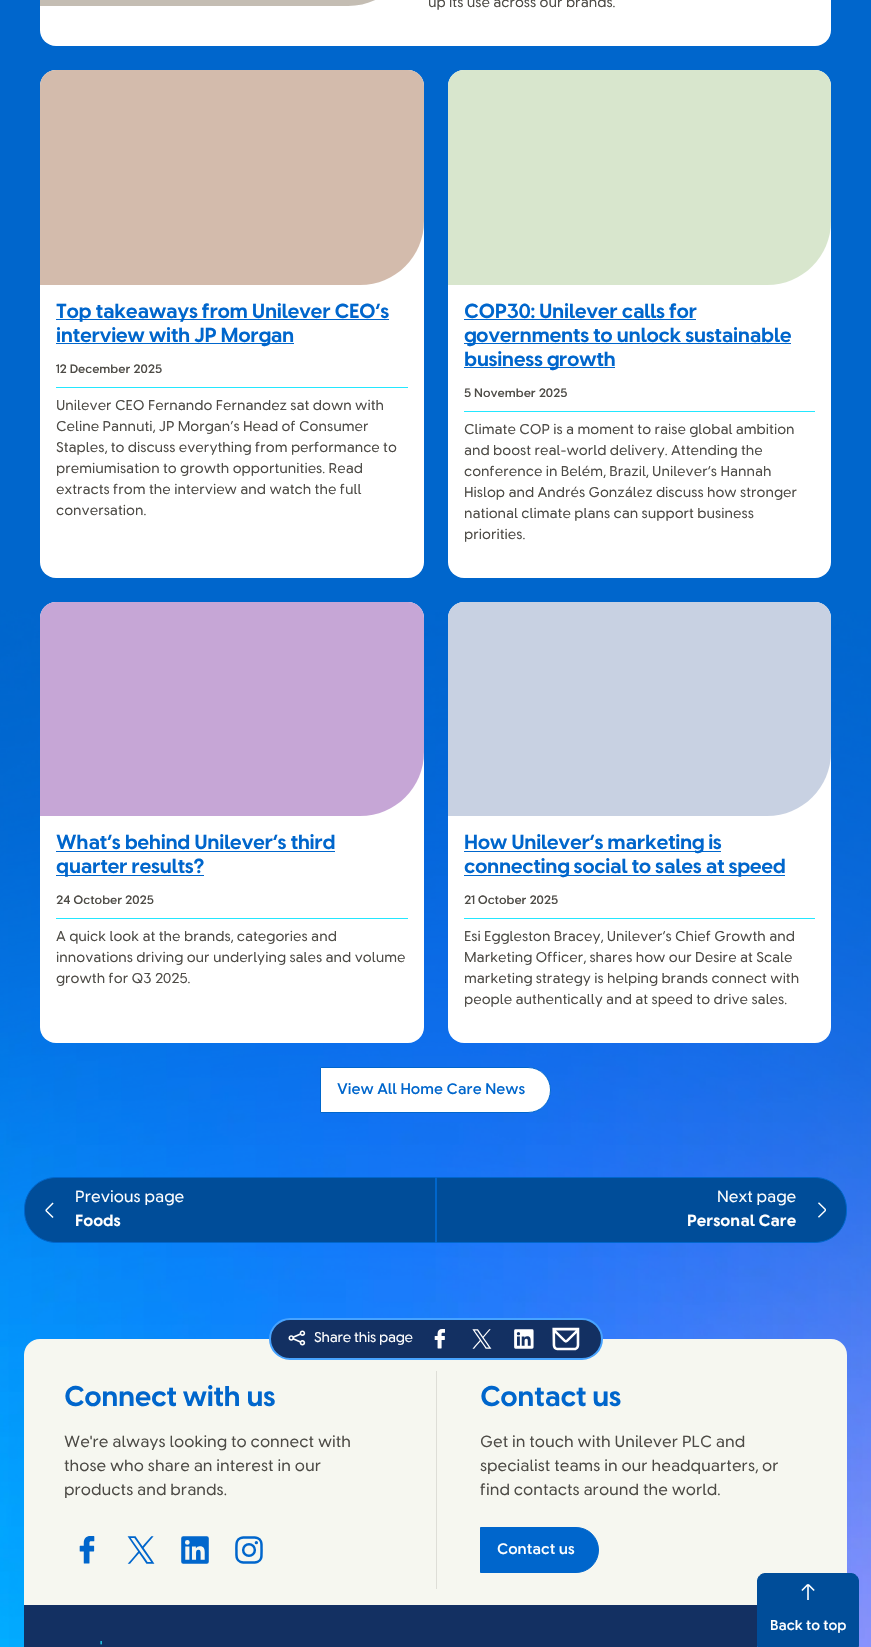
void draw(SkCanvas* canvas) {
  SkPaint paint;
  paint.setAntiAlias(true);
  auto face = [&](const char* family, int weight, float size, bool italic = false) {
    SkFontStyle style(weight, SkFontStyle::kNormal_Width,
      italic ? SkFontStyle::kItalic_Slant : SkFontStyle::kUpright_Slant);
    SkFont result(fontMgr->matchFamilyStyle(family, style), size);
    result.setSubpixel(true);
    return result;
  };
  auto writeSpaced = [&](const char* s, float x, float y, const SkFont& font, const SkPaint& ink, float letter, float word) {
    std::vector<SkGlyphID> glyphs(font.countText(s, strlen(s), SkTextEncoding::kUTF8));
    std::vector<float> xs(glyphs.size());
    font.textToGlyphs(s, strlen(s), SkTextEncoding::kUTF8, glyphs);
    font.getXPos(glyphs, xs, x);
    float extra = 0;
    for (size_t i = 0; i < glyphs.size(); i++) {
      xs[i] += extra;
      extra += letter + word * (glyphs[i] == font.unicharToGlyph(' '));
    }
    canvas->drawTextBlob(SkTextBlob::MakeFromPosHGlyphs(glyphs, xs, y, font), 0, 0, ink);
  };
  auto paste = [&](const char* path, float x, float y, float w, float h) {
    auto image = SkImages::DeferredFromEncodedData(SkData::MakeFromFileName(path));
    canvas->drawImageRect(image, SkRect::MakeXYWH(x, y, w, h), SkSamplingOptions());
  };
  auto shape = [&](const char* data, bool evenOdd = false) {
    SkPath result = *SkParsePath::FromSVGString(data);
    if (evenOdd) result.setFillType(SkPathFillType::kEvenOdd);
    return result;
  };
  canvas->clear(0xff0066cc);
  paint.setColor(0xffffffff);
  canvas->drawRoundRect(SkRect::MakeXYWH(40, -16, 791, 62), 16, 16, paint);
  paint.setColor(0xffc4bdb3);
  canvas->drawPath(shape("M56-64H412V-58C412-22.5 383.5 6 348 6H40V-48C40-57 47-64 56-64Z"), paint);
  paint.setColor(0xffffffff);
  canvas->drawRoundRect(SkRect::MakeXYWH(40, 70, 384, 508), 16, 16, paint);
  paint.setColor(0xffd3bbac);
  canvas->drawPath(shape("M56 70H408C417 70 424 77 424 86V221C424 256.5 395.5 285 360 285H40V86C40 77 47 70 56 70Z"), paint);
  {
    const struct { float x, y, w, h; SkColor color; } items[] = {
      {56, 319, 333, 1, 0xff0066cc},
      {56, 343, 238, 1, 0xff0066cc},
      {56, 387, 352, 1, 0xff23e7ff},
    };
    for (auto [x, y, w, h, color] : items) {
      paint.setColor(color);
      canvas->drawRect(SkRect::MakeXYWH(x, y, w, h), paint);
    }
  }
  paint.setColor(0xffffffff);
  canvas->drawRoundRect(SkRect::MakeXYWH(448, 70, 383, 508), 16, 16, paint);
  paint.setColor(0xffd8e6cd);
  canvas->drawPath(shape("M464 70H815C824 70 831 77 831 86V221C831 256.5 802.5 285 767 285H448V86C448 77 455 70 464 70Z"), paint);
  {
    const struct { float x, y, w, h; SkColor color; } items[] = {
      {464, 319, 232, 1, 0xff0066cc},
      {464, 343, 327, 1, 0xff0066cc},
      {464, 367, 151, 1, 0xff0066cc},
      {464, 411, 351, 1, 0xff23e7ff},
    };
    for (auto [x, y, w, h, color] : items) {
      paint.setColor(color);
      canvas->drawRect(SkRect::MakeXYWH(x, y, w, h), paint);
    }
  }
  paste("img/13.png", 0, 610, 871, 1037);
  paint.setColor(0xffffffff);
  canvas->drawRoundRect(SkRect::MakeXYWH(40, 602, 384, 441), 16, 16, paint);
  paint.setColor(0xffc6a6d6);
  canvas->drawPath(shape("M56 602H408C417 602 424 609 424 618V752C424 787.5 395.5 816 360 816H40V618C40 609 47 602 56 602Z"), paint);
  {
    const struct { float x, y, w, h; SkColor color; } items[] = {
      {56, 851, 279, 1, 0xff0066cc},
      {56, 875, 148, 1, 0xff0066cc},
      {56, 918, 352, 1, 0xff23e7ff},
    };
    for (auto [x, y, w, h, color] : items) {
      paint.setColor(color);
      canvas->drawRect(SkRect::MakeXYWH(x, y, w, h), paint);
    }
  }
  paint.setColor(0xffffffff);
  canvas->drawRoundRect(SkRect::MakeXYWH(448, 602, 383, 441), 16, 16, paint);
  paint.setColor(0xffc8d1e2);
  canvas->drawPath(shape("M464 602H815C824 602 831 609 831 618V752C831 787.5 802.5 816 767 816H448V618C448 609 455 602 464 602Z"), paint);
  {
    const struct { float x, y, w, h; SkColor color; } items[] = {
      {464, 851, 257, 1, 0xff0066cc},
      {464, 875, 321, 1, 0xff0066cc},
      {464, 918, 351, 1, 0xff23e7ff},
    };
    for (auto [x, y, w, h, color] : items) {
      paint.setColor(color);
      canvas->drawRect(SkRect::MakeXYWH(x, y, w, h), paint);
    }
  }
  paint.setColor(0xffffffff);
  canvas->drawPath(shape("M320.5 1067.5H528C540.5 1067.5 550.5 1077.5 550.5 1090C550.5 1102.5 540.5 1112.5 528 1112.5H320.5Z"), paint);
  paint.setStroke(true);
  paint.setStrokeWidth(1);
  paint.setColor(0xff0066cc);
  canvas->drawPath(shape("M320.5 1067.5H528C540.5 1067.5 550.5 1077.5 550.5 1090C550.5 1102.5 540.5 1112.5 528 1112.5H320.5Z"), paint);
  paint.setStroke(false);
  paint.setColor(0xff004d99);
  canvas->drawPath(shape("M56 1177.5H435.5V1242.5H56C38.5 1242.5 24.5 1228.5 24.5 1211V1209C24.5 1191.5 38.5 1177.5 56 1177.5Z"), paint);
  paint.setStroke(true);
  paint.setColor(0xff0066cc);
  canvas->drawPath(shape("M56 1177.5H435.5V1242.5H56C38.5 1242.5 24.5 1228.5 24.5 1211V1209C24.5 1191.5 38.5 1177.5 56 1177.5Z"), paint);
  paste("img/1.png", 45, 1202, 9, 16);
  paint.setStroke(false);
  paint.setColor(0xff004d99);
  canvas->drawPath(shape("M436.5 1177.5H815C832.5 1177.5 846.5 1191.5 846.5 1209V1211C846.5 1228.5 832.5 1242.5 815 1242.5H436.5Z"), paint);
  paint.setStroke(true);
  paint.setColor(0xff0066cc);
  canvas->drawPath(shape("M436.5 1177.5H815C832.5 1177.5 846.5 1191.5 846.5 1209V1211C846.5 1228.5 832.5 1242.5 815 1242.5H436.5Z"), paint);
  paste("img/2.png", 818, 1202, 8, 16);
  paint.setStroke(false);
  paint.setColor(0xfff6f7f0);
  canvas->drawPath(shape("M40 1339H831C840 1339 847 1346 847 1355V1605H24V1355C24 1346 31 1339 40 1339Z"), paint);
  paint.setColor(0xff133062);
  canvas->drawRoundRect(SkRect::MakeXYWH(270, 1319, 332, 40), 20, 20, paint);
  paint.setStroke(true);
  paint.setStrokeWidth(2);
  paint.setColor(0xff47a3ff);
  canvas->drawRoundRect(SkRect::MakeXYWH(270, 1319, 332, 40), 20, 20, paint);
  paste("img/3.png", 288, 1330, 18, 16);
  paste("img/4.png", 434, 1329, 11, 20);
  paste("img/5.png", 472, 1329, 20, 20);
  paste("img/6.png", 514, 1329, 20, 20);
  paste("img/7.png", 552, 1327, 28, 24);
  paste("img/8.png", 79, 1536, 16, 28);
  paste("img/9.png", 127, 1536, 28, 28);
  paste("img/10.png", 181, 1536, 28, 28);
  paste("img/11.png", 235, 1536, 28, 28);
  paint.setStroke(false);
  paint.setColor(0xffdeded7);
  canvas->drawRect(SkRect::MakeXYWH(436, 1371, 1, 218), paint);
  paint.setColor(0xff0066cc);
  canvas->drawPath(shape("M480.5 1527.5H576C588.5 1527.5 598.5 1537.5 598.5 1550C598.5 1562.5 588.5 1572.5 576 1572.5H480.5Z"), paint);
  paint.setStroke(true);
  paint.setStrokeWidth(1);
  canvas->drawPath(shape("M480.5 1527.5H576C588.5 1527.5 598.5 1537.5 598.5 1550C598.5 1562.5 588.5 1572.5 576 1572.5H480.5Z"), paint);
  paint.setStroke(false);
  paint.setColor(0xff133062);
  canvas->drawRect(SkRect::MakeXYWH(24, 1605, 733, 42), paint);
  paint.setColor(0xff004d99);
  canvas->drawPath(shape("M765 1573.5H851C855 1573.5 858.5 1577 858.5 1581V1646.5H757.5V1581C757.5 1577 761 1573.5 765 1573.5Z"), paint);
  paint.setStroke(true);
  canvas->drawPath(shape("M765 1573.5H851C855 1573.5 858.5 1577 858.5 1581V1646.5H757.5V1581C757.5 1577 761 1573.5 765 1573.5Z"), paint);
  paste("img/12.png", 801, 1584, 14, 16);
  auto f0 = face("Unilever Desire", 400, 14);
  paint.setStroke(false);
  paint.setColor(0xff4d4b46);
  canvas->drawString("up its use across our brands.", 428, 7, f0, paint);
  auto f1 = face("Unilever Desire", 700, 20);
  paint.setColor(0xff0066cc);
  writeSpaced("Top takeaways from Unilever CEO’s", 56, 318, f1, paint, -0.4f, 0);
  writeSpaced("interview with JP Morgan", 56, 342, f1, paint, -0.4f, 0);
  auto f2 = face("Unilever Desire", 600, 12);
  paint.setColor(0xff4d4b46);
  canvas->drawString("12 December 2025", 56, 373, f2, paint);
  {
    const struct { const char* s; float x, y; } items[] = {
      {"Unilever CEO Fernando Fernandez sat down with", 56, 410},
      {"Celine Pannuti, JP Morgan’s Head of Consumer", 56, 431},
      {"Staples, to discuss everything from performance to", 56, 452},
      {"premiumisation to growth opportunities. Read", 56, 473},
      {"extracts from the interview and watch the full", 56, 494},
      {"conversation.", 56, 515},
    };
    for (auto [s, x, y] : items) {
      canvas->drawString(s, x, y, f0, paint);
    }
  }
  paint.setColor(0xff0066cc);
  {
    const struct { const char* s; float x, y; } items[] = {
      {"COP30: Unilever calls for", 464, 318},
      {"governments to unlock sustainable", 464, 342},
      {"business growth", 464, 366},
    };
    for (auto [s, x, y] : items) {
      writeSpaced(s, x, y, f1, paint, -0.4f, 0);
    }
  }
  paint.setColor(0xff4d4b46);
  canvas->drawString("5 November 2025", 464, 397, f2, paint);
  {
    const struct { const char* s; float x, y; } items[] = {
      {"Climate COP is a moment to raise global ambition", 464, 434},
      {"and boost real-world delivery. Attending the", 464, 455},
      {"conference in Belém, Brazil, Unilever’s Hannah", 464, 476},
      {"Hislop and Andrés González discuss how stronger", 464, 497},
      {"national climate plans can support business", 464, 518},
      {"priorities.", 464, 539},
    };
    for (auto [s, x, y] : items) {
      canvas->drawString(s, x, y, f0, paint);
    }
  }
  paint.setColor(0xff0066cc);
  writeSpaced("What’s behind Unilever’s third", 56, 849, f1, paint, -0.4f, 0);
  writeSpaced("quarter results?", 56, 873, f1, paint, -0.4f, 0);
  paint.setColor(0xff4d4b46);
  canvas->drawString("24 October 2025", 56, 904, f2, paint);
  {
    const struct { const char* s; float x, y; } items[] = {
      {"A quick look at the brands, categories and", 56, 941},
      {"innovations driving our underlying sales and volume", 56, 962},
      {"growth for Q3 2025.", 56, 983},
    };
    for (auto [s, x, y] : items) {
      canvas->drawString(s, x, y, f0, paint);
    }
  }
  paint.setColor(0xff0066cc);
  writeSpaced("How Unilever’s marketing is", 464, 849, f1, paint, -0.4f, 0);
  writeSpaced("connecting social to sales at speed", 464, 873, f1, paint, -0.4f, 0);
  paint.setColor(0xff4d4b46);
  canvas->drawString("21 October 2025", 464, 904, f2, paint);
  {
    const struct { const char* s; float x, y; } items[] = {
      {"Esi Eggleston Bracey, Unilever’s Chief Growth and", 464, 941},
      {"Marketing Officer, shares how our Desire at Scale", 464, 962},
      {"marketing strategy is helping brands connect with", 464, 983},
      {"people authentically and at speed to drive sales.", 464, 1004},
    };
    for (auto [s, x, y] : items) {
      canvas->drawString(s, x, y, f0, paint);
    }
  }
  auto f3 = face("Unilever Desire", 600, 15);
  paint.setColor(0xff0066cc);
  canvas->drawString("View All Home Care News", 337, 1094, f3, paint);
  auto f4 = face("Unilever Desire", 400, 16);
  paint.setColor(0xffffffff);
  canvas->drawString("Previous page", 75, 1202, f4, paint);
  auto f5 = face("Unilever Desire", 700, 16);
  canvas->drawString("Foods", 75, 1226, f5, paint);
  canvas->drawString("Next page", 717, 1202, f4, paint);
  canvas->drawString("Personal Care", 687, 1226, f5, paint);
  writeSpaced("Share this page", 314, 1342, f0, paint, -0.25f, 0);
  auto f6 = face("Unilever Desire", 700, 28);
  paint.setColor(0xff0066cc);
  writeSpaced("Connect with us", 64, 1406, f6, paint, -0.5f, 0);
  paint.setColor(0xff4d4b46);
  {
    const struct { const char* s; float x, y; } items[] = {
      {"We're always looking to connect with", 64, 1447},
      {"those who share an interest in our", 64, 1471},
      {"products and brands.", 64, 1495},
    };
    for (auto [s, x, y] : items) {
      canvas->drawString(s, x, y, f4, paint);
    }
  }
  paint.setColor(0xff0066cc);
  writeSpaced("Contact us", 480, 1406, f6, paint, -0.5f, 0);
  paint.setColor(0xff4d4b46);
  {
    const struct { const char* s; float x, y; } items[] = {
      {"Get in touch with Unilever PLC and", 480, 1447},
      {"specialist teams in our headquarters, or", 480, 1471},
      {"find contacts around the world.", 480, 1495},
    };
    for (auto [s, x, y] : items) {
      canvas->drawString(s, x, y, f4, paint);
    }
  }
  paint.setColor(0xffffffff);
  canvas->drawString("Contact us", 497, 1554, f3, paint);
  paint.setColor(0xff23e7ff);
  canvas->drawString("'", 100, 1651, f0, paint);
  auto f7 = face("Unilever Desire", 600, 14);
  paint.setColor(0xffffffff);
  canvas->drawString("Back to top", 770, 1630, f7, paint);
}
